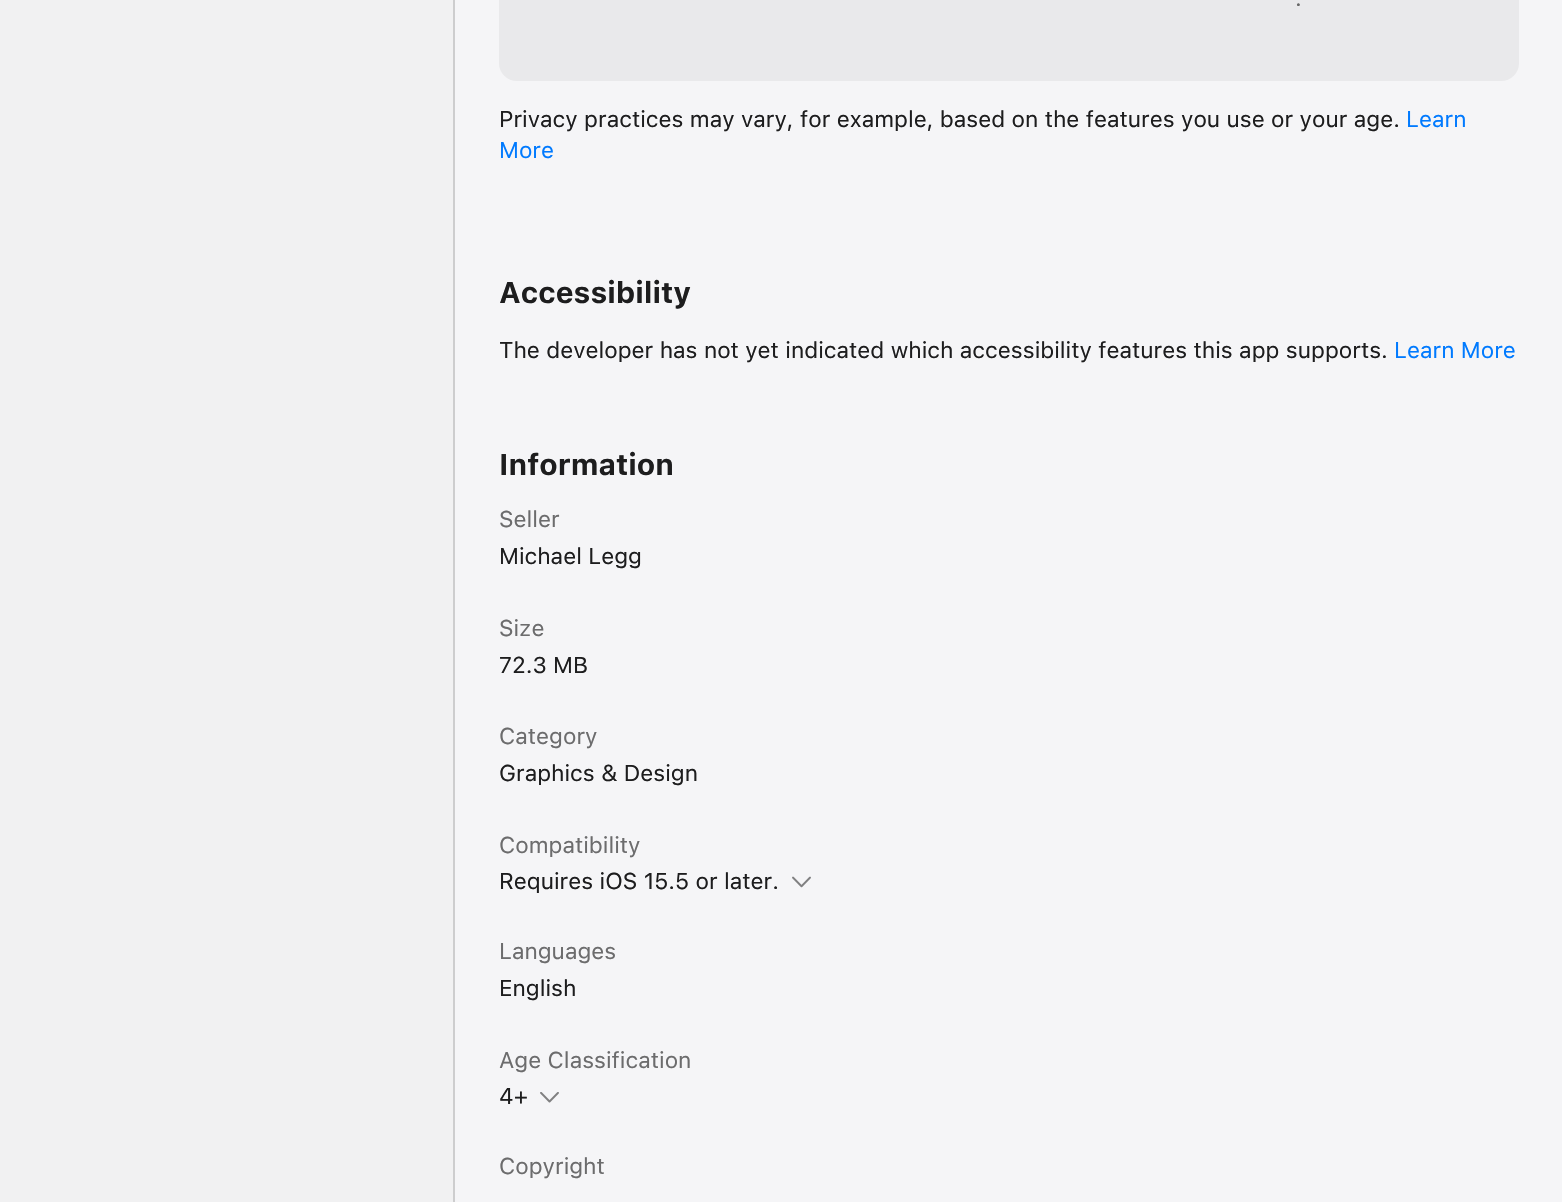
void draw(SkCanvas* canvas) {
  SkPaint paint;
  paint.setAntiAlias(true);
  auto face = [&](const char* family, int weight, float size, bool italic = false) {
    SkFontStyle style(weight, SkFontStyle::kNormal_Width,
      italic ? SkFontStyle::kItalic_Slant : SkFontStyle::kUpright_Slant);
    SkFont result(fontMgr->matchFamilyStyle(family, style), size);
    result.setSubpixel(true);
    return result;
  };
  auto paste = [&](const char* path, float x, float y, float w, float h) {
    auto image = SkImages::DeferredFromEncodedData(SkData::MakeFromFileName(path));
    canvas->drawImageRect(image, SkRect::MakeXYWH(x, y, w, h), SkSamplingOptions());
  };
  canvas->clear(0xfff5f5f7);
  paint.setColor(0xfff1f1f2);
  canvas->drawRect(SkRect::MakeXYWH(0, 0, 453, 1202), paint);
  paint.setColor(0xffcdcdce);
  canvas->drawRect(SkRect::MakeXYWH(453, 0, 2, 1202), paint);
  paint.setColor(0xffe9e9eb);
  canvas->drawRoundRect(SkRect::MakeXYWH(499, -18, 1020, 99), 18, 18, paint);
  paste("img/1.png", 792, 876, 19, 12);
  paste("img/2.png", 540, 1092, 19, 11);
  auto f0 = face("SF", 400, 22.75f);
  paint.setColor(0xff676767);
  canvas->drawString(".", 1295, 6, f0, paint);
  paint.setColor(0xff1d1d1e);
  canvas->drawString("Privacy practices may vary, for example, based on the features you use or your age.", 499, 127, f0, paint);
  paint.setColor(0xff007aff);
  canvas->drawString("Learn", 1406, 127, f0, paint);
  canvas->drawString("More", 499, 158, f0, paint);
  auto f1 = face("SF", 700, 29.75f);
  paint.setColor(0xff1d1d1e);
  canvas->drawString("Accessibility", 499, 303, f1, paint);
  canvas->drawString("The developer has not yet indicated which accessibility features this app supports.", 499, 358, f0, paint);
  paint.setColor(0xff007aff);
  canvas->drawString("Learn More", 1394, 358, f0, paint);
  paint.setColor(0xff1d1d1e);
  canvas->drawString("Information", 499, 475, f1, paint);
  paint.setColor(0xff6c6c6d);
  canvas->drawString("Seller", 499, 527, f0, paint);
  paint.setColor(0xff1d1d1e);
  canvas->drawString("Michael Legg", 499, 564, f0, paint);
  paint.setColor(0xff6c6c6d);
  canvas->drawString("Size", 499, 636, f0, paint);
  paint.setColor(0xff1d1d1e);
  canvas->drawString("72.3 MB", 499, 673, f0, paint);
  paint.setColor(0xff6c6c6d);
  canvas->drawString("Category", 499, 744, f0, paint);
  paint.setColor(0xff1d1d1e);
  canvas->drawString("Graphics & Design", 499, 781, f0, paint);
  paint.setColor(0xff6c6c6d);
  canvas->drawString("Compatibility", 499, 853, f0, paint);
  paint.setColor(0xff1d1d1e);
  canvas->drawString("Requires iOS 15.5 or later.", 499, 889, f0, paint);
  paint.setColor(0xff6c6c6d);
  canvas->drawString("Languages", 499, 959, f0, paint);
  paint.setColor(0xff1d1d1e);
  canvas->drawString("English", 499, 996, f0, paint);
  paint.setColor(0xff6c6c6d);
  canvas->drawString("Age Classification", 499, 1068, f0, paint);
  paint.setColor(0xff1d1d1e);
  canvas->drawString("4+", 499, 1104, f0, paint);
  paint.setColor(0xff6c6c6d);
  canvas->drawString("Copyright", 499, 1174, f0, paint);
}
